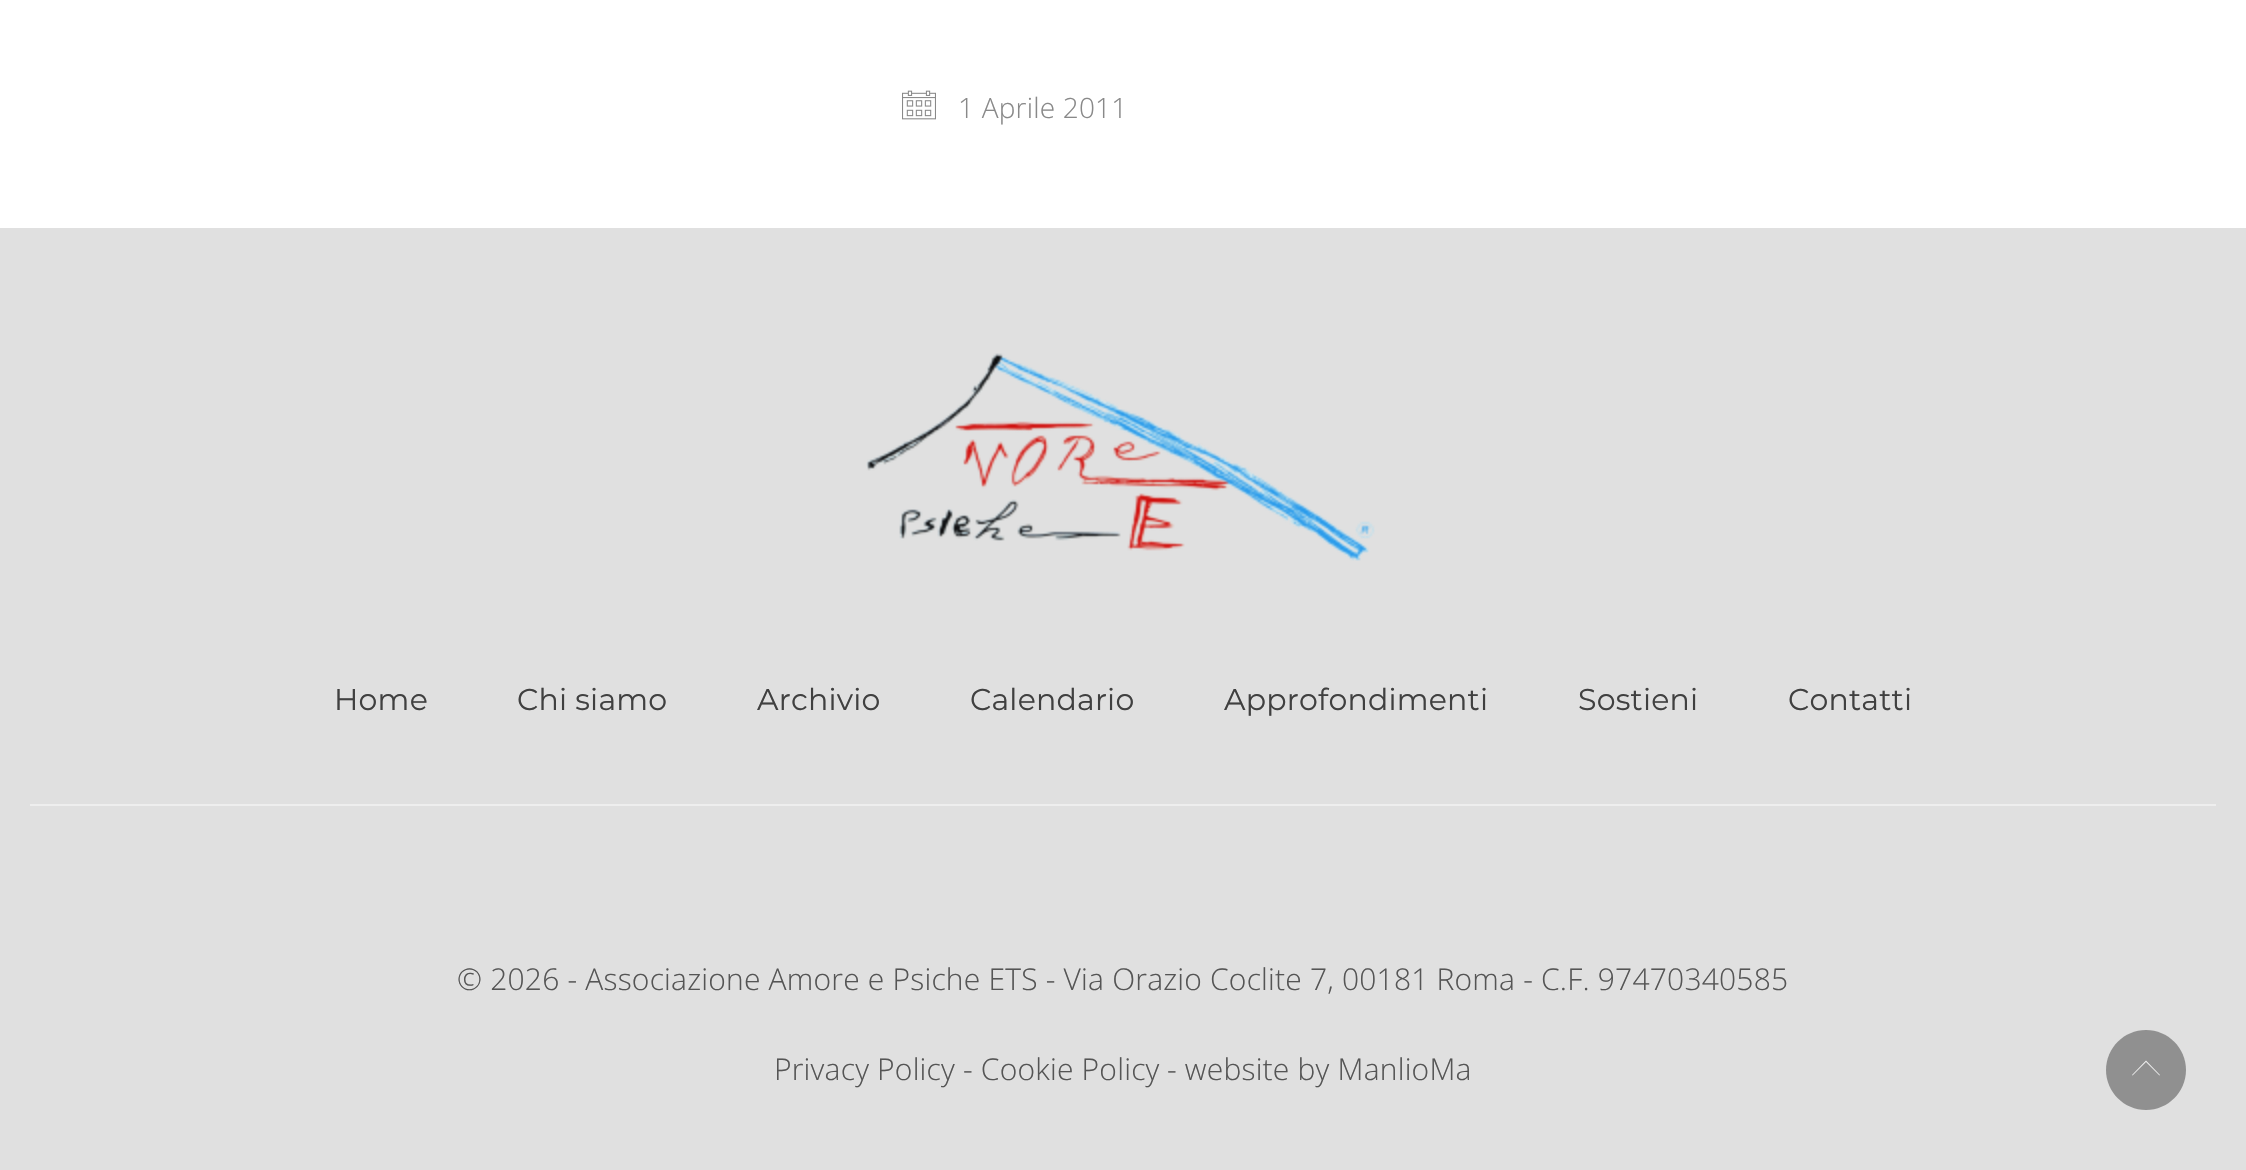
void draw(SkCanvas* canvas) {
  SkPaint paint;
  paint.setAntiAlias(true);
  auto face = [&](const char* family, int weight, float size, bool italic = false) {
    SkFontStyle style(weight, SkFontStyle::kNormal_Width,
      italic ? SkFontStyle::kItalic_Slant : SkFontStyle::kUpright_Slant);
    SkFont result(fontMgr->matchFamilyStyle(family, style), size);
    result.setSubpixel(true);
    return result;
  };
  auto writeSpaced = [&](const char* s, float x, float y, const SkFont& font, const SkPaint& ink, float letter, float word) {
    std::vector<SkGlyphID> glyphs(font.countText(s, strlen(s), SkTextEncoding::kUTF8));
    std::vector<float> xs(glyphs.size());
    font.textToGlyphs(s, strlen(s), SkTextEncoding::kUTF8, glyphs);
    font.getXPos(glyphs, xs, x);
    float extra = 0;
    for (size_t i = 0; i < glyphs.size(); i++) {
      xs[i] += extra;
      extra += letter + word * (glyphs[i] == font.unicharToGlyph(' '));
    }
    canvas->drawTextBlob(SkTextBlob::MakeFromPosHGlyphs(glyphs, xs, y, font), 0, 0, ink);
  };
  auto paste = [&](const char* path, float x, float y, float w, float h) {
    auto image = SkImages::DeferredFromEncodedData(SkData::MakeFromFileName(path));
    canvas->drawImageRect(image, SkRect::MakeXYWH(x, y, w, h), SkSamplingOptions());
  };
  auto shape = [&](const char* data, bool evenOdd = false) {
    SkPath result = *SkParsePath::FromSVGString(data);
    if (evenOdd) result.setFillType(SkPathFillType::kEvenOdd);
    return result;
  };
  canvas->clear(0xffffffff);
  paste("img/1.png", 902, 90, 34, 30);
  paint.setColor(0xffe0e0e0);
  canvas->drawRect(SkRect::MakeXYWH(0, 228, 2246, 942), paint);
  paste("img/2.png", 866, 353, 509, 208);
  paint.setColor(0xffeeeeee);
  canvas->drawRect(SkRect::MakeXYWH(30, 804, 2186, 2), paint);
  paint.setColor(0xff909090);
  canvas->drawPath(shape("M2146 1110C2124 1110 2106 1092 2106 1070C2106 1048 2124 1030 2146 1030C2168 1030 2186 1048 2186 1070C2186 1092 2168 1110 2146 1110Z"), paint);
  paint.setColor(0xfff0f0f0);
  canvas->drawPath(shape("M2146 1060.5L2160 1075L2159.5 1075.5L2146 1062L2132.5 1075.5L2132 1075Z"), paint);
  auto f0 = face("Open Sans", 300, 28);
  paint.setColor(0xff898989);
  writeSpaced("1 Aprile 2011", 958, 118, f0, paint, 0.2f, 0);
  auto f1 = face("Montserrat", 400, 30);
  paint.setColor(0xff404040);
  {
    const struct { const char* s; float x, y; } items[] = {
      {"Home", 334, 710},
      {"Chi siamo", 517, 710},
      {"Archivio", 757, 710},
      {"Calendario", 970, 710},
      {"Approfondimenti", 1224, 710},
      {"Sostieni", 1578, 710},
      {"Contatti", 1788, 710},
    };
    for (auto [s, x, y] : items) {
      writeSpaced(s, x, y, f1, paint, 0.2f, 0);
    }
  }
  auto f2 = face("Open Sans", 300, 30);
  paint.setColor(0xff555555);
  {
    const struct { const char* s; float x, y; } items[] = {
      {"© 2026 - Associazione Amore e Psiche ETS - Via Orazio Coclite 7, 00181 Roma - C.F. 97470340585", 457, 990},
      {"Privacy Policy", 774, 1080},
      {"- Cookie Policy", 963, 1080},
      {"- website by ManlioMa", 1167, 1080},
    };
    for (auto [s, x, y] : items) {
      writeSpaced(s, x, y, f2, paint, 0.2f, 0);
    }
  }
}
